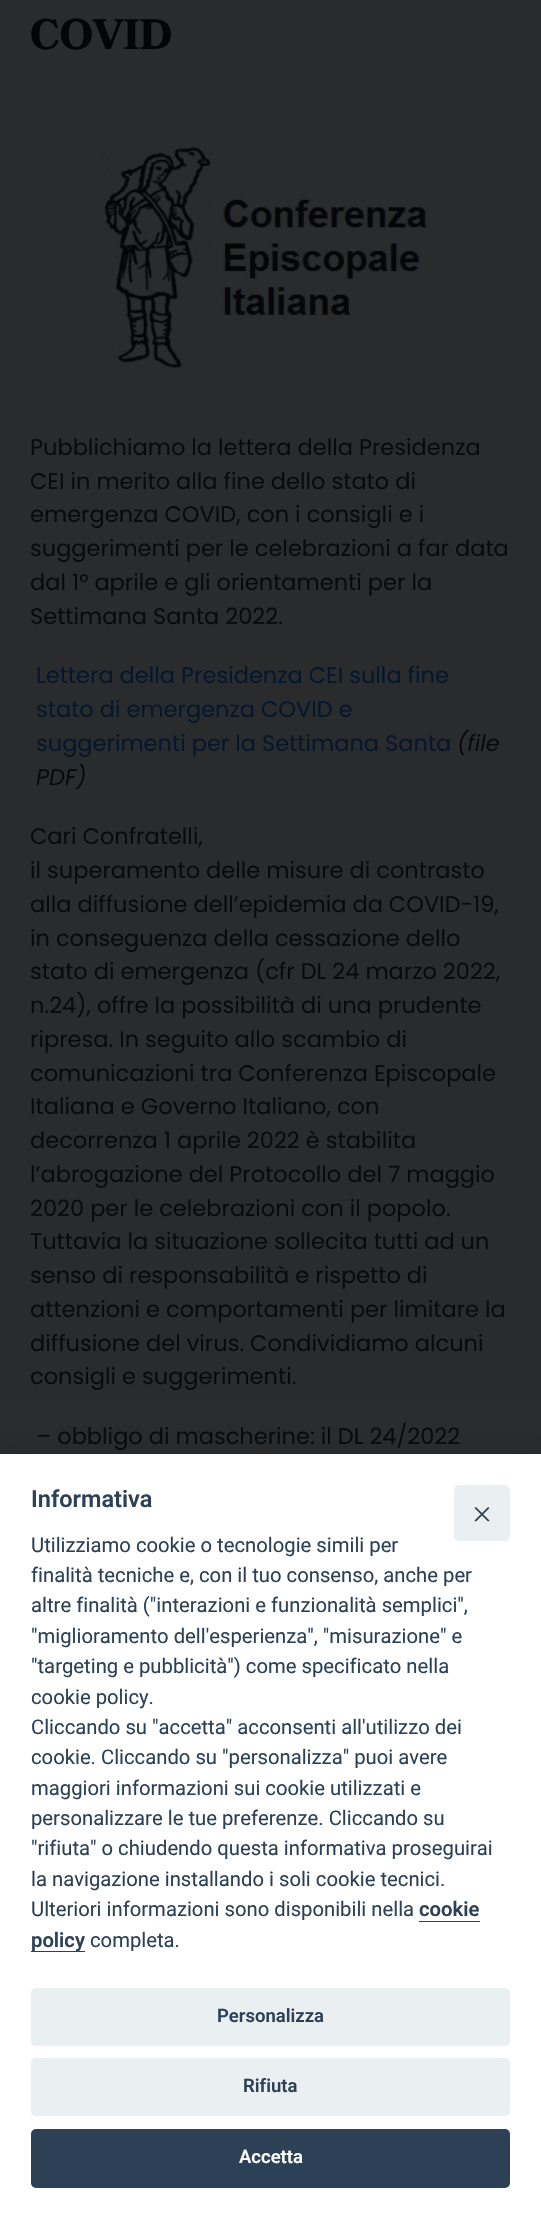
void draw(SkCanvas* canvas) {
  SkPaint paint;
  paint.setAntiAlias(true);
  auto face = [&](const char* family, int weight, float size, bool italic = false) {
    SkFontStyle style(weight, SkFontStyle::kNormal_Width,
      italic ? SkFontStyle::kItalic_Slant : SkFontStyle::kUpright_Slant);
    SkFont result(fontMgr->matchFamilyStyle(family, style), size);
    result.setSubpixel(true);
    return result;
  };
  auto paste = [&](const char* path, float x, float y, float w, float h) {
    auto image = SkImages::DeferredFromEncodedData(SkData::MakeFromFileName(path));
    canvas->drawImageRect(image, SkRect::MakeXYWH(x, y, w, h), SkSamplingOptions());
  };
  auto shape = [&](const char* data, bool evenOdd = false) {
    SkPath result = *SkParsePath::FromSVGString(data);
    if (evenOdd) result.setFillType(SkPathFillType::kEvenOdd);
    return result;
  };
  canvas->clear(0xff2a2b2d);
  paste("img/1.png", 97, 141, 337, 238);
  paint.setColor(0x47020203);
  paint.setMaskFilter(SkMaskFilter::MakeBlur(kNormal_SkBlurStyle, 21));
  canvas->drawRect(SkRect::MakeXYWH(0, 1468, 541, 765), paint);
  paint.setMaskFilter(nullptr);
  paint.setColor(0xffffffff);
  canvas->drawRect(SkRect::MakeXYWH(0, 1454, 541, 764), paint);
  paint.setColor(0xffeaeff2);
  canvas->drawRoundRect(SkRect::MakeXYWH(454, 1485, 56, 56), 5, 5, paint);
  paint.setColor(0xff2d4156);
  canvas->drawPath(shape("M489 1507.5C489.5 1507.5 489.5 1508.5 489 1508.5L476.5 1521C476 1521.5 475.5 1521.5 475 1521C474.5 1521 474.5 1520 475 1520L487.5 1507.5C488 1507 488.5 1507 489 1507.5Z"), paint);
  canvas->drawPath(shape("M475 1507.5C475.5 1507 476 1507 476.5 1507.5L489 1520C489.5 1520 489.5 1521 489 1521C488.5 1521.5 488 1521.5 487.5 1521L475 1508.5C474.5 1508.5 474.5 1507.5 475 1507.5Z"), paint);
  canvas->drawRect(SkRect::MakeXYWH(419, 1921, 61, 1), paint);
  canvas->drawRect(SkRect::MakeXYWH(31, 1951, 54, 1), paint);
  paint.setColor(0xffeaeff2);
  canvas->drawRoundRect(SkRect::MakeXYWH(31, 1988, 479, 58), 5, 5, paint);
  canvas->drawRoundRect(SkRect::MakeXYWH(31, 2058, 479, 58), 5, 5, paint);
  paint.setColor(0xff2d4156);
  canvas->drawRoundRect(SkRect::MakeXYWH(31, 2129, 479, 59), 5, 5, paint);
  auto f0 = face("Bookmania", 700, 42.5f);
  paint.setColor(0xff030507);
  canvas->drawString("COVID", 30, 49, f0, paint);
  auto f1 = face("Poppins", 400, 22.5f);
  paint.setColor(0xff080b0d);
  {
    const struct { const char* s; float x, y; } items[] = {
      {"Pubblichiamo la lettera della Presidenza", 30, 455},
      {"CEI in merito alla fine dello stato di", 30, 489},
      {"emergenza COVID, con i consigli e i", 30, 522},
      {"suggerimenti per le celebrazioni a far data", 30, 556},
      {"dal 1° aprile e gli orientamenti per la", 30, 590},
      {"Settimana Santa 2022.", 30, 624},
    };
    for (auto [s, x, y] : items) {
      canvas->drawString(s, x, y, f1, paint);
    }
  }
  paint.setColor(0xff05162d);
  {
    const struct { const char* s; float x, y; } items[] = {
      {"Lettera della Presidenza CEI sulla fine", 36, 683},
      {"stato di emergenza COVID e", 36, 717},
      {"suggerimenti per la Settimana Santa", 36, 751},
    };
    for (auto [s, x, y] : items) {
      canvas->drawString(s, x, y, f1, paint);
    }
  }
  auto f2 = face("Poppins", 400, 22.5f, true);
  paint.setColor(0xff080b0d);
  canvas->drawString("(file", 457, 751, f2, paint);
  canvas->drawString("PDF)", 36, 785, f2, paint);
  {
    const struct { const char* s; float x, y; } items[] = {
      {"Cari Confratelli,", 30, 844},
      {"il superamento delle misure di contrasto", 30, 878},
      {"alla diffusione dell’epidemia da COVID-19,", 30, 912},
      {"in conseguenza della cessazione dello", 30, 946},
      {"stato di emergenza (cfr DL 24 marzo 2022,", 30, 979},
      {"n.24), offre la possibilità di una prudente", 30, 1013},
      {"ripresa. In seguito allo scambio di", 30, 1047},
      {"comunicazioni tra Conferenza Episcopale", 30, 1081},
      {"Italiana e Governo Italiano, con", 30, 1114},
      {"decorrenza 1 aprile 2022 è stabilita", 30, 1148},
      {"l’abrogazione del Protocollo del 7 maggio", 30, 1182},
      {"2020 per le celebrazioni con il popolo.", 30, 1216},
      {"Tuttavia la situazione sollecita tutti ad un", 30, 1249},
      {"senso di responsabilità e rispetto di", 30, 1283},
      {"attenzioni e comportamenti per limitare la", 30, 1317},
      {"diffusione del virus. Condividiamo alcuni", 30, 1351},
      {"consigli e suggerimenti.", 30, 1384},
      {"– obbligo di mascherine: il DL 24/2022", 36, 1444},
    };
    for (auto [s, x, y] : items) {
      canvas->drawString(s, x, y, f1, paint);
    }
  }
  auto f3 = face("Roboto", 600, 23.5f);
  paint.setColor(0xff2d4156);
  canvas->drawString("Informativa", 31, 1507, f3, paint);
  auto f4 = face("Roboto", 400, 20.25f);
  {
    const struct { const char* s; float x, y; } items[] = {
      {"Utilizziamo cookie o tecnologie simili per", 31, 1552},
      {"finalità tecniche e, con il tuo consenso, anche per", 31, 1582},
      {"altre finalità (\"interazioni e funzionalità semplici\",", 31, 1612},
      {"\"miglioramento dell'esperienza\", \"misurazione\" e", 31, 1643},
      {"\"targeting e pubblicità\") come specificato nella", 31, 1673},
      {"cookie policy.", 31, 1704},
      {"Cliccando su \"accetta\" acconsenti all'utilizzo dei", 31, 1734},
      {"cookie. Cliccando su \"personalizza\" puoi avere", 31, 1764},
      {"maggiori informazioni sui cookie utilizzati e", 31, 1795},
      {"personalizzare le tue preferenze. Cliccando su", 31, 1825},
      {"\"rifiuta\" o chiudendo questa informativa proseguirai", 31, 1855},
      {"la navigazione installando i soli cookie tecnici.", 31, 1886},
      {"Ulteriori informazioni sono disponibili nella", 31, 1916},
    };
    for (auto [s, x, y] : items) {
      canvas->drawString(s, x, y, f4, paint);
    }
  }
  auto f5 = face("Roboto", 600, 20.25f);
  canvas->drawString("cookie", 419, 1916, f5, paint);
  canvas->drawString("policy", 31, 1947, f5, paint);
  canvas->drawString("completa.", 90, 1947, f4, paint);
  auto f6 = face("Roboto", 600, 18.5f);
  canvas->drawString("Personalizza", 217, 2022, f6, paint);
  canvas->drawString("Rifiuta", 243, 2092, f6, paint);
  paint.setColor(0xffffffff);
  canvas->drawString("Accetta", 239, 2163, f6, paint);
}
